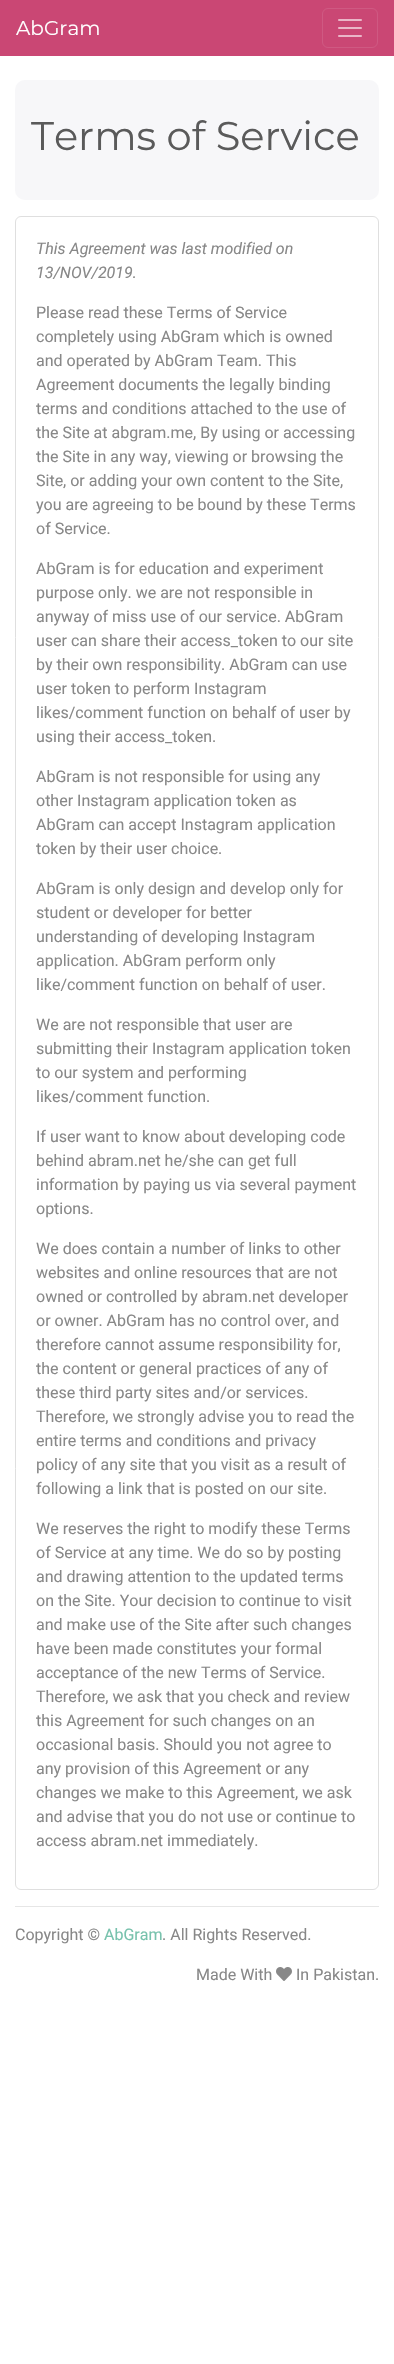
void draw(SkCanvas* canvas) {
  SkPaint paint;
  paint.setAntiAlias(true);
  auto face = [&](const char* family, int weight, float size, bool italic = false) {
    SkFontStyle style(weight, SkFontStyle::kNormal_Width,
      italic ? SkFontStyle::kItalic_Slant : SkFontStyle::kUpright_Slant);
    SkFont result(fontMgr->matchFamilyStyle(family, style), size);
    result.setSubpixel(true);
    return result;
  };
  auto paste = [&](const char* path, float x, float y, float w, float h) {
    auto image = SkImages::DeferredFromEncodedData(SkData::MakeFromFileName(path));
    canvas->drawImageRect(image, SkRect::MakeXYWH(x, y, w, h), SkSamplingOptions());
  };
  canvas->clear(0xffffffff);
  paint.setColor(0xffca4774);
  canvas->drawRect(SkRect::MakeXYWH(0, 0, 394, 56), paint);
  paint.setStroke(true);
  paint.setStrokeWidth(1);
  paint.setColor(0xffcf5982);
  canvas->drawRoundRect(SkRect::MakeXYWH(322.5f, 8.5f, 55, 39), 5.5f, 5.5f, paint);
  paste("img/1.png", 338, 19, 24, 18);
  paint.setStroke(false);
  paint.setColor(0xfff7f7f9);
  canvas->drawRoundRect(SkRect::MakeXYWH(15, 80, 364, 120), 10, 10, paint);
  paint.setStroke(true);
  paint.setColor(0xffdfdfdf);
  canvas->drawRoundRect(SkRect::MakeXYWH(15.5f, 216.5f, 363, 1673), 5.5f, 5.5f, paint);
  paint.setStroke(false);
  paint.setColor(0xffe6e6e6);
  canvas->drawRect(SkRect::MakeXYWH(15, 1906, 364, 1), paint);
  paste("img/2.png", 276, 1967, 16, 14);
  auto f0 = face("Montserrat", 100, 20);
  paint.setColor(0xffffffff);
  canvas->drawString("AbGram", 16, 35, f0, paint);
  auto f1 = face("Montserrat", 100, 40);
  paint.setColor(0xff5a5a5a);
  canvas->drawString("Terms of Service", 31, 150, f1, paint);
  auto f2 = face("Roboto", 400, 16, true);
  paint.setColor(0xff888888);
  canvas->drawString("This Agreement was last modified on", 36, 254, f2, paint);
  canvas->drawString("13/NOV/2019.", 36, 278, f2, paint);
  auto f3 = face("Roboto", 400, 16);
  {
    const struct { const char* s; float x, y; } items[] = {
      {"Please read these Terms of Service", 36, 318},
      {"completely using AbGram which is owned", 36, 342},
      {"and operated by AbGram Team. This", 36, 366},
      {"Agreement documents the legally binding", 36, 390},
      {"terms and conditions attached to the use of", 36, 414},
      {"the Site at abgram.me, By using or accessing", 36, 438},
      {"the Site in any way, viewing or browsing the", 36, 462},
      {"Site, or adding your own content to the Site,", 36, 486},
      {"you are agreeing to be bound by these Terms", 36, 510},
      {"of Service.", 36, 534},
      {"AbGram is for education and experiment", 36, 574},
      {"purpose only. we are not responsible in", 36, 598},
      {"anyway of miss use of our service. AbGram", 36, 622},
      {"user can share their access_token to our site", 36, 646},
      {"by their own responsibility. AbGram can use", 36, 670},
      {"user token to perform Instagram", 36, 694},
      {"likes/comment function on behalf of user by", 36, 718},
      {"using their access_token.", 36, 742},
      {"AbGram is not responsible for using any", 36, 782},
      {"other Instagram application token as", 36, 806},
      {"AbGram can accept Instagram application", 36, 830},
      {"token by their user choice.", 36, 854},
      {"AbGram is only design and develop only for", 36, 894},
      {"student or developer for better", 36, 918},
      {"understanding of developing Instagram", 36, 942},
      {"application. AbGram perform only", 36, 966},
      {"like/comment function on behalf of user.", 36, 990},
      {"We are not responsible that user are", 36, 1030},
      {"submitting their Instagram application token", 36, 1054},
      {"to our system and performing", 36, 1078},
      {"likes/comment function.", 36, 1102},
      {"If user want to know about developing code", 36, 1142},
      {"behind abram.net he/she can get full", 36, 1166},
      {"information by paying us via several payment", 36, 1190},
      {"options.", 36, 1214},
      {"We does contain a number of links to other", 36, 1254},
      {"websites and online resources that are not", 36, 1278},
      {"owned or controlled by abram.net developer", 36, 1302},
      {"or owner. AbGram has no control over, and", 36, 1326},
      {"therefore cannot assume responsibility for,", 36, 1350},
      {"the content or general practices of any of", 36, 1374},
      {"these third party sites and/or services.", 36, 1398},
      {"Therefore, we strongly advise you to read the", 36, 1422},
      {"entire terms and conditions and privacy", 36, 1446},
      {"policy of any site that you visit as a result of", 36, 1470},
      {"following a link that is posted on our site.", 36, 1494},
      {"We reserves the right to modify these Terms", 36, 1534},
      {"of Service at any time. We do so by posting", 36, 1558},
      {"and drawing attention to the updated terms", 36, 1582},
      {"on the Site. Your decision to continue to visit", 36, 1606},
      {"and make use of the Site after such changes", 36, 1630},
      {"have been made constitutes your formal", 36, 1654},
      {"acceptance of the new Terms of Service.", 36, 1678},
      {"Therefore, we ask that you check and review", 36, 1702},
      {"this Agreement for such changes on an", 36, 1726},
      {"occasional basis. Should you not agree to", 36, 1750},
      {"any provision of this Agreement or any", 36, 1774},
      {"changes we make to this Agreement, we ask", 36, 1798},
      {"and advise that you do not use or continue to", 36, 1822},
      {"access abram.net immediately.", 36, 1846},
      {"Copyright ©", 15, 1940},
    };
    for (auto [s, x, y] : items) {
      canvas->drawString(s, x, y, f3, paint);
    }
  }
  paint.setColor(0xff78c2ad);
  canvas->drawString("AbGram", 104, 1940, f3, paint);
  paint.setColor(0xff888888);
  {
    const struct { const char* s; float x, y; } items[] = {
      {". All Rights Reserved.", 162, 1940},
      {"Made With", 196, 1980},
      {"In Pakistan.", 296, 1980},
    };
    for (auto [s, x, y] : items) {
      canvas->drawString(s, x, y, f3, paint);
    }
  }
}
